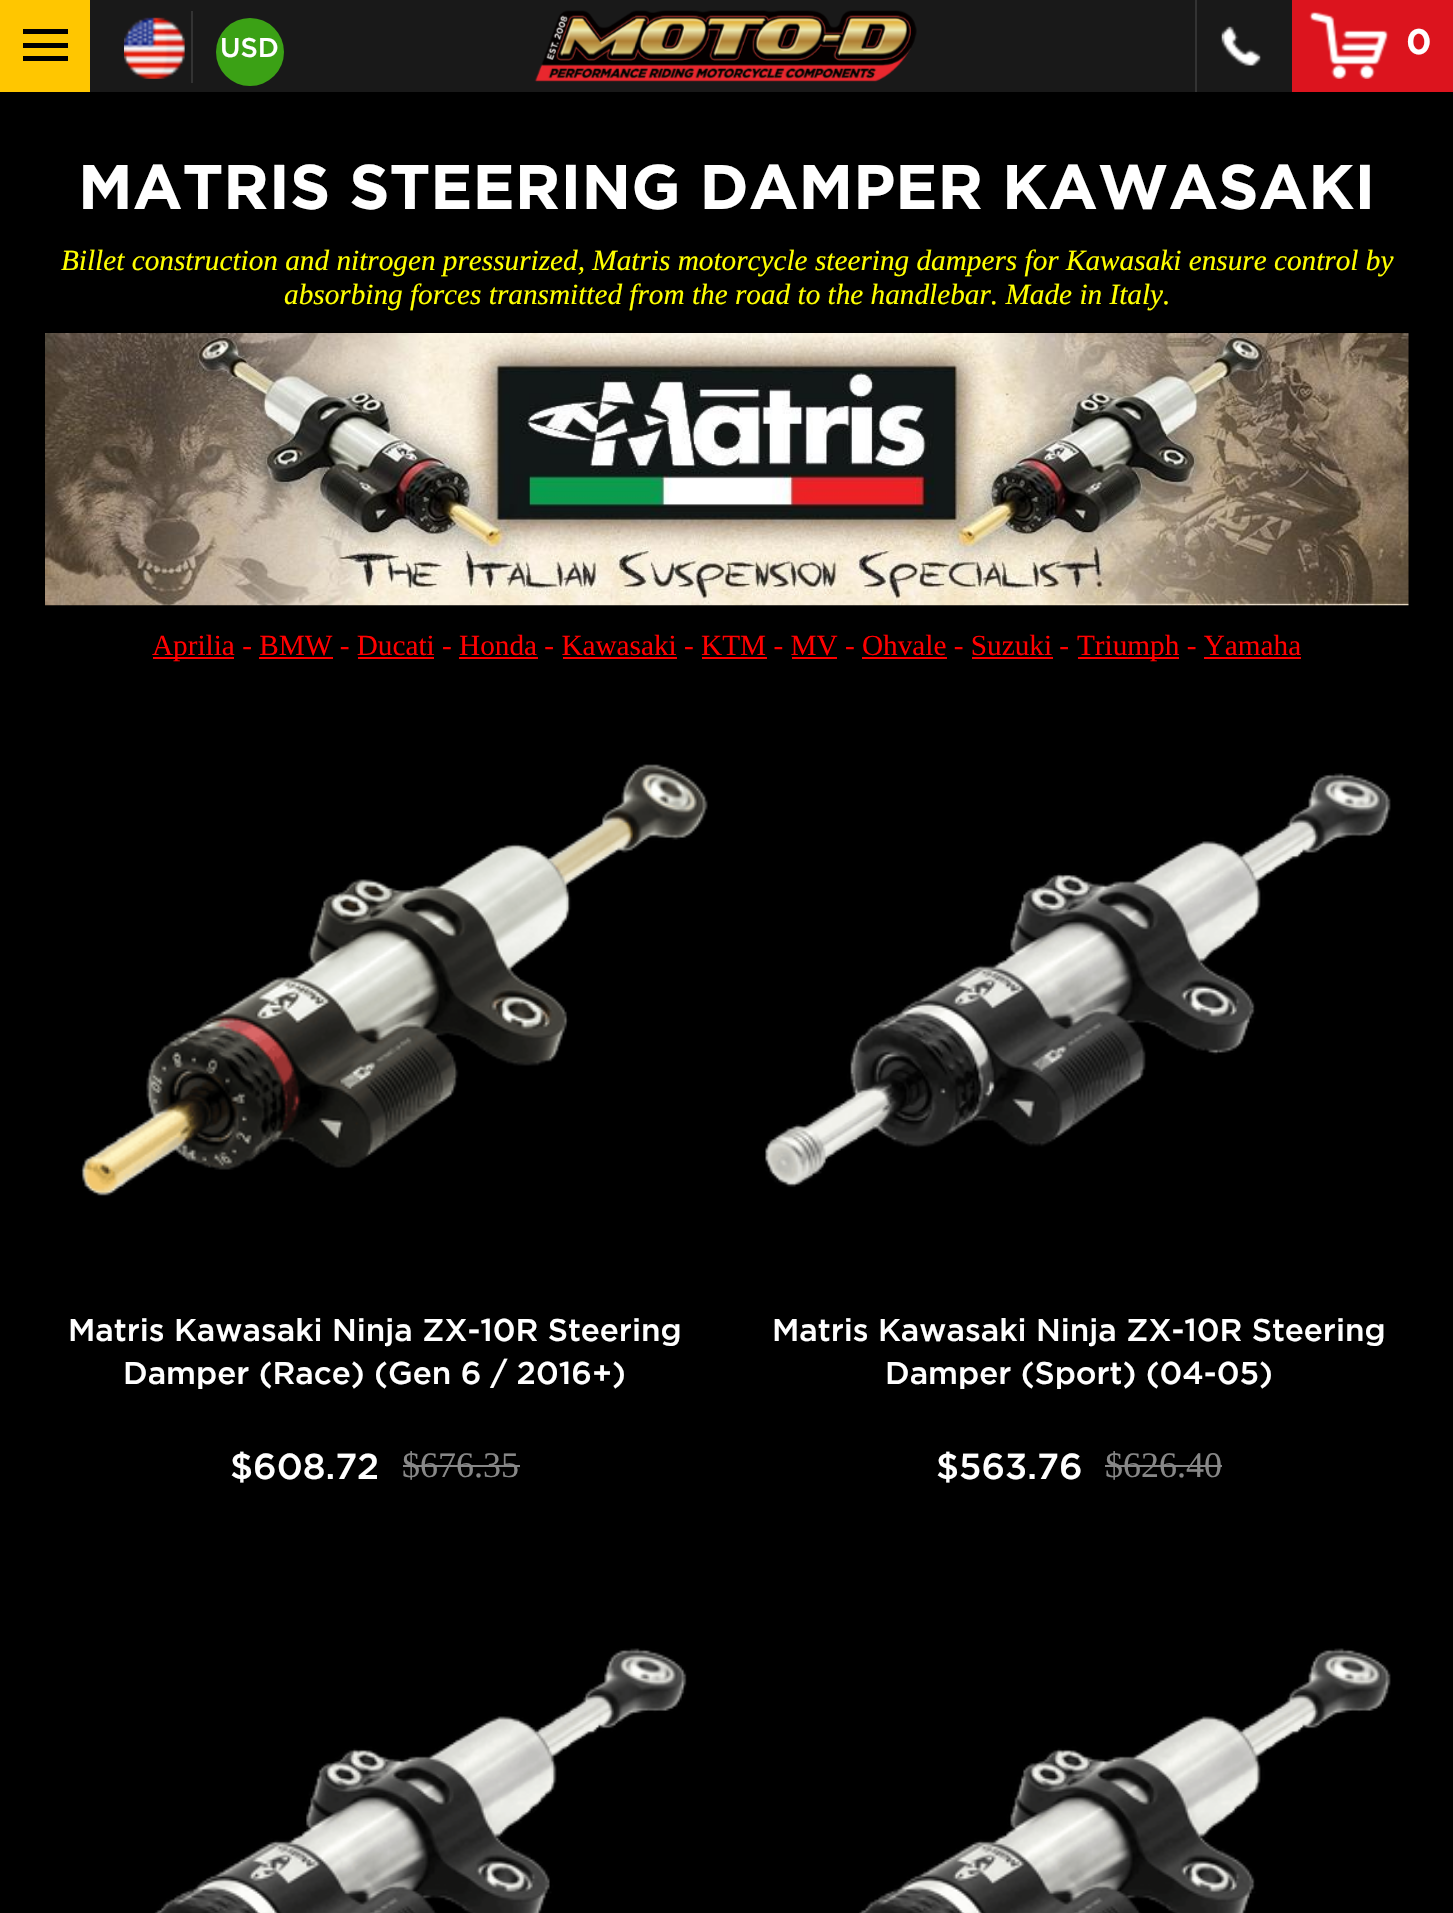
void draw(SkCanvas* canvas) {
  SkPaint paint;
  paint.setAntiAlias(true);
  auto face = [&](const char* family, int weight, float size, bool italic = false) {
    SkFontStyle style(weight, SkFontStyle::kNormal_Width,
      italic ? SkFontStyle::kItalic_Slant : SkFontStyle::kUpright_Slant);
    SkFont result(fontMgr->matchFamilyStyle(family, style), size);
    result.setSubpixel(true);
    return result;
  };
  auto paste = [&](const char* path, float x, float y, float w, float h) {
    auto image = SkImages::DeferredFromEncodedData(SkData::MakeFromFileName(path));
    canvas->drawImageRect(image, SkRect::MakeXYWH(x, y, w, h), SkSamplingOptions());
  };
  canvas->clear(0xff000000);
  {
    const struct { float x, y, w, h; SkColor color; } items[] = {
      {0, 0, 90, 92, 0xffffc600},
      {23, 43, 45, 5, 0xff000000},
      {23, 29, 45, 5, 0xff000000},
      {23, 56, 45, 5, 0xff000000},
      {90, 0, 1202, 92, 0xff191919},
    };
    for (auto [x, y, w, h, color] : items) {
      paint.setColor(color);
      canvas->drawRect(SkRect::MakeXYWH(x, y, w, h), paint);
    }
  }
  paste("img/1.png", 534, 10, 383, 72);
  paint.setColor(0xff333333);
  canvas->drawRect(SkRect::MakeXYWH(191, 11, 2, 72), paint);
  paste("img/2.png", 124, 17, 61, 62);
  paint.setColor(0xff3ba115);
  canvas->drawCircle(250, 52, 34, paint);
  paint.setColor(0xff333333);
  canvas->drawRect(SkRect::MakeXYWH(1195, 0, 2, 92), paint);
  paste("img/3.png", 1221, 26, 40, 40);
  paint.setColor(0xffdc141e);
  canvas->drawRect(SkRect::MakeXYWH(1292, 0, 161, 92), paint);
  paste("img/4.png", 1309, 11, 80, 68);
  paste("img/5.png", 45, 333, 1364, 273);
  {
    const struct { float x, y, w, h; SkColor color; } items[] = {
      {153, 657, 81, 2, 0xffff0000},
      {259, 657, 74, 2, 0xffff0000},
      {358, 657, 76, 2, 0xffff0000},
      {459, 657, 79, 2, 0xffff0000},
      {563, 657, 114, 2, 0xffff0000},
      {702, 657, 65, 2, 0xffff0000},
      {792, 657, 45, 2, 0xffff0000},
      {862, 657, 85, 2, 0xffff0000},
      {972, 657, 81, 2, 0xffff0000},
      {1078, 657, 101, 2, 0xffff0000},
      {1204, 657, 97, 2, 0xffff0000},
    };
    for (auto [x, y, w, h, color] : items) {
      paint.setColor(color);
      canvas->drawRect(SkRect::MakeXYWH(x, y, w, h), paint);
    }
  }
  paste("img/6.png", 80, 764, 628, 432);
  paint.setColor(0xff878787);
  canvas->drawRect(SkRect::MakeXYWH(403, 1465, 117, 2), paint);
  paste("img/7.png", 765, 773, 626, 414);
  canvas->drawRect(SkRect::MakeXYWH(1105, 1465, 117, 2), paint);
  paste("img/8.png", 154, 1648, 533, 265);
  paste("img/9.png", 859, 1648, 532, 265);
  auto f0 = face("Gotham", 500, 27);
  paint.setColor(0xffffffff);
  canvas->drawString("USD", 220, 57, f0, paint);
  auto f1 = face("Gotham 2", 700, 34);
  canvas->drawString("0", 1406, 54, f1, paint);
  auto f2 = face("Gotham", 700, 63);
  canvas->drawString("MATRIS STEERING DAMPER KAWASAKI", 78, 209, f2, paint);
  auto f3 = face("Liberation Serif", 400, 29.25f, true);
  paint.setColor(0xffffff00);
  canvas->drawString("Billet construction and nitrogen pressurized, Matris motorcycle steering dampers for Kawasaki ensure control by", 61, 270, f3, paint);
  canvas->drawString("absorbing forces transmitted from the road to the handlebar. Made in Italy.", 284, 304, f3, paint);
  auto f4 = face("Liberation Serif", 400, 29.25f);
  paint.setColor(0xffff0000);
  canvas->drawString("Aprilia - BMW - Ducati - Honda - Kawasaki - KTM - MV - Ohvale - Suzuki -", 152, 655, f4, paint);
  canvas->drawString("Triumph - Yamaha", 1077, 655, f4, paint);
  auto f5 = face("Gotham", 500, 31.5f);
  paint.setColor(0xffffffff);
  canvas->drawString("Matris Kawasaki Ninja ZX-10R Steering", 68, 1341, f5, paint);
  canvas->drawString("Damper (Race) (Gen 6 / 2016+)", 123, 1384, f5, paint);
  auto f6 = face("Gotham", 500, 36);
  canvas->drawString("$608.72", 230, 1479, f6, paint);
  auto f7 = face("Liberation Serif", 400, 36);
  paint.setColor(0xff878787);
  canvas->drawString("$676.35", 402, 1477, f7, paint);
  paint.setColor(0xffffffff);
  canvas->drawString("Matris Kawasaki Ninja ZX-10R Steering", 772, 1341, f5, paint);
  canvas->drawString("Damper (Sport) (04-05)", 885, 1384, f5, paint);
  canvas->drawString("$563.76", 936, 1479, f6, paint);
  paint.setColor(0xff878787);
  canvas->drawString("$626.40", 1105, 1477, f7, paint);
}
